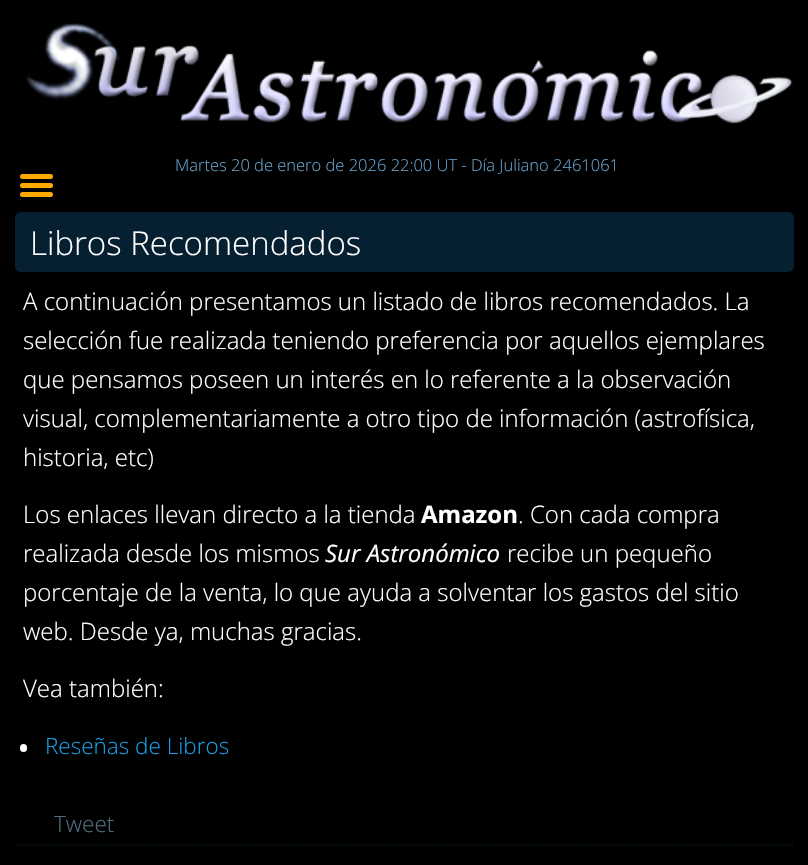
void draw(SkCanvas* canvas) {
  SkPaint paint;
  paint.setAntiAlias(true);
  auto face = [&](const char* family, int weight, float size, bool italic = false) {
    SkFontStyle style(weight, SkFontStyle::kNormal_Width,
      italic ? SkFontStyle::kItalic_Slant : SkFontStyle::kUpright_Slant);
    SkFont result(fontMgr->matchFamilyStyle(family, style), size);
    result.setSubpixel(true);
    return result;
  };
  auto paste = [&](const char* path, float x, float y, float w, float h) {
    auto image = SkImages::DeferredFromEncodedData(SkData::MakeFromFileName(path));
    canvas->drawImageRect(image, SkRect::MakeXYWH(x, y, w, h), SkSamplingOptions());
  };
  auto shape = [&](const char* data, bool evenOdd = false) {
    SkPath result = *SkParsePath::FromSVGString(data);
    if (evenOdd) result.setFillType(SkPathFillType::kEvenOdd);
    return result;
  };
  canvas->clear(0xff000000);
  paste("img/1.png", 26, 23, 767, 101);
  paint.setColor(0xffffa800);
  canvas->drawRoundRect(SkRect::MakeXYWH(20, 174, 33, 5), 2.5f, 2.5f, paint);
  canvas->drawRoundRect(SkRect::MakeXYWH(20, 183, 33, 5), 2.5f, 2.5f, paint);
  canvas->drawRoundRect(SkRect::MakeXYWH(20, 192, 33, 5), 2.5f, 2.5f, paint);
  paint.setColor(0xff061f31);
  canvas->drawRoundRect(SkRect::MakeXYWH(15, 212, 779, 60), 6, 6, paint);
  paint.setColor(0xffffffff);
  canvas->drawRoundRect(SkRect::MakeXYWH(20, 744, 7, 8), 3.5f, 3.5f, paint);
  paint.setStroke(true);
  paint.setStrokeWidth(1.5f);
  paint.setColor(0xff041624);
  paint.setPathEffect(SkDashPathEffect::Make({{1.5f, 1.5f}}, 0));
  canvas->drawPath(shape("M15 845H793.5"), paint);
  paint.setPathEffect(nullptr);
  auto f0 = face("Open Sans", 300, 16.5f);
  paint.setStroke(false);
  paint.setColor(0xff67a2cc);
  canvas->drawString("Martes 20 de enero de 2026 22:00 UT - Día Juliano 2461061", 175, 171, f0, paint);
  auto f1 = face("Open Sans", 300, 33);
  paint.setColor(0xffffffff);
  canvas->drawString("Libros Recomendados", 30, 255, f1, paint);
  auto f2 = face("Open Sans", 300, 24);
  {
    const struct { const char* s; float x, y; } items[] = {
      {"A continuación presentamos un listado de libros recomendados. La", 23, 310},
      {"selección fue realizada teniendo preferencia por aquellos ejemplares", 23, 349},
      {"que pensamos poseen un interés en lo referente a la observación", 23, 388},
      {"visual, complementariamente a otro tipo de información (astrofísica,", 23, 427},
      {"historia, etc)", 23, 466},
      {"Los enlaces llevan directo a la tienda", 23, 523},
    };
    for (auto [s, x, y] : items) {
      canvas->drawString(s, x, y, f2, paint);
    }
  }
  auto f3 = face("Open Sans", 700, 24);
  canvas->drawString("Amazon", 421, 523, f3, paint);
  canvas->drawString(". Con cada compra", 518, 523, f2, paint);
  canvas->drawString("realizada desde los mismos", 23, 562, f2, paint);
  auto f4 = face("Open Sans", 400, 24, true);
  canvas->drawString("Sur Astronómico", 325, 562, f4, paint);
  {
    const struct { const char* s; float x, y; } items[] = {
      {"recibe un pequeño", 507, 562},
      {"porcentaje de la venta, lo que ayuda a solventar los gastos del sitio", 23, 601},
      {"web. Desde ya, muchas gracias.", 23, 640},
      {"Vea también:", 23, 697},
    };
    for (auto [s, x, y] : items) {
      canvas->drawString(s, x, y, f2, paint);
    }
  }
  auto f5 = face("Open Sans", 300, 22.5f);
  paint.setColor(0xff179de6);
  canvas->drawString("Reseñas de Libros", 45, 754, f5, paint);
  paint.setColor(0xff516f7f);
  canvas->drawString("Tweet", 54, 832, f5, paint);
}
